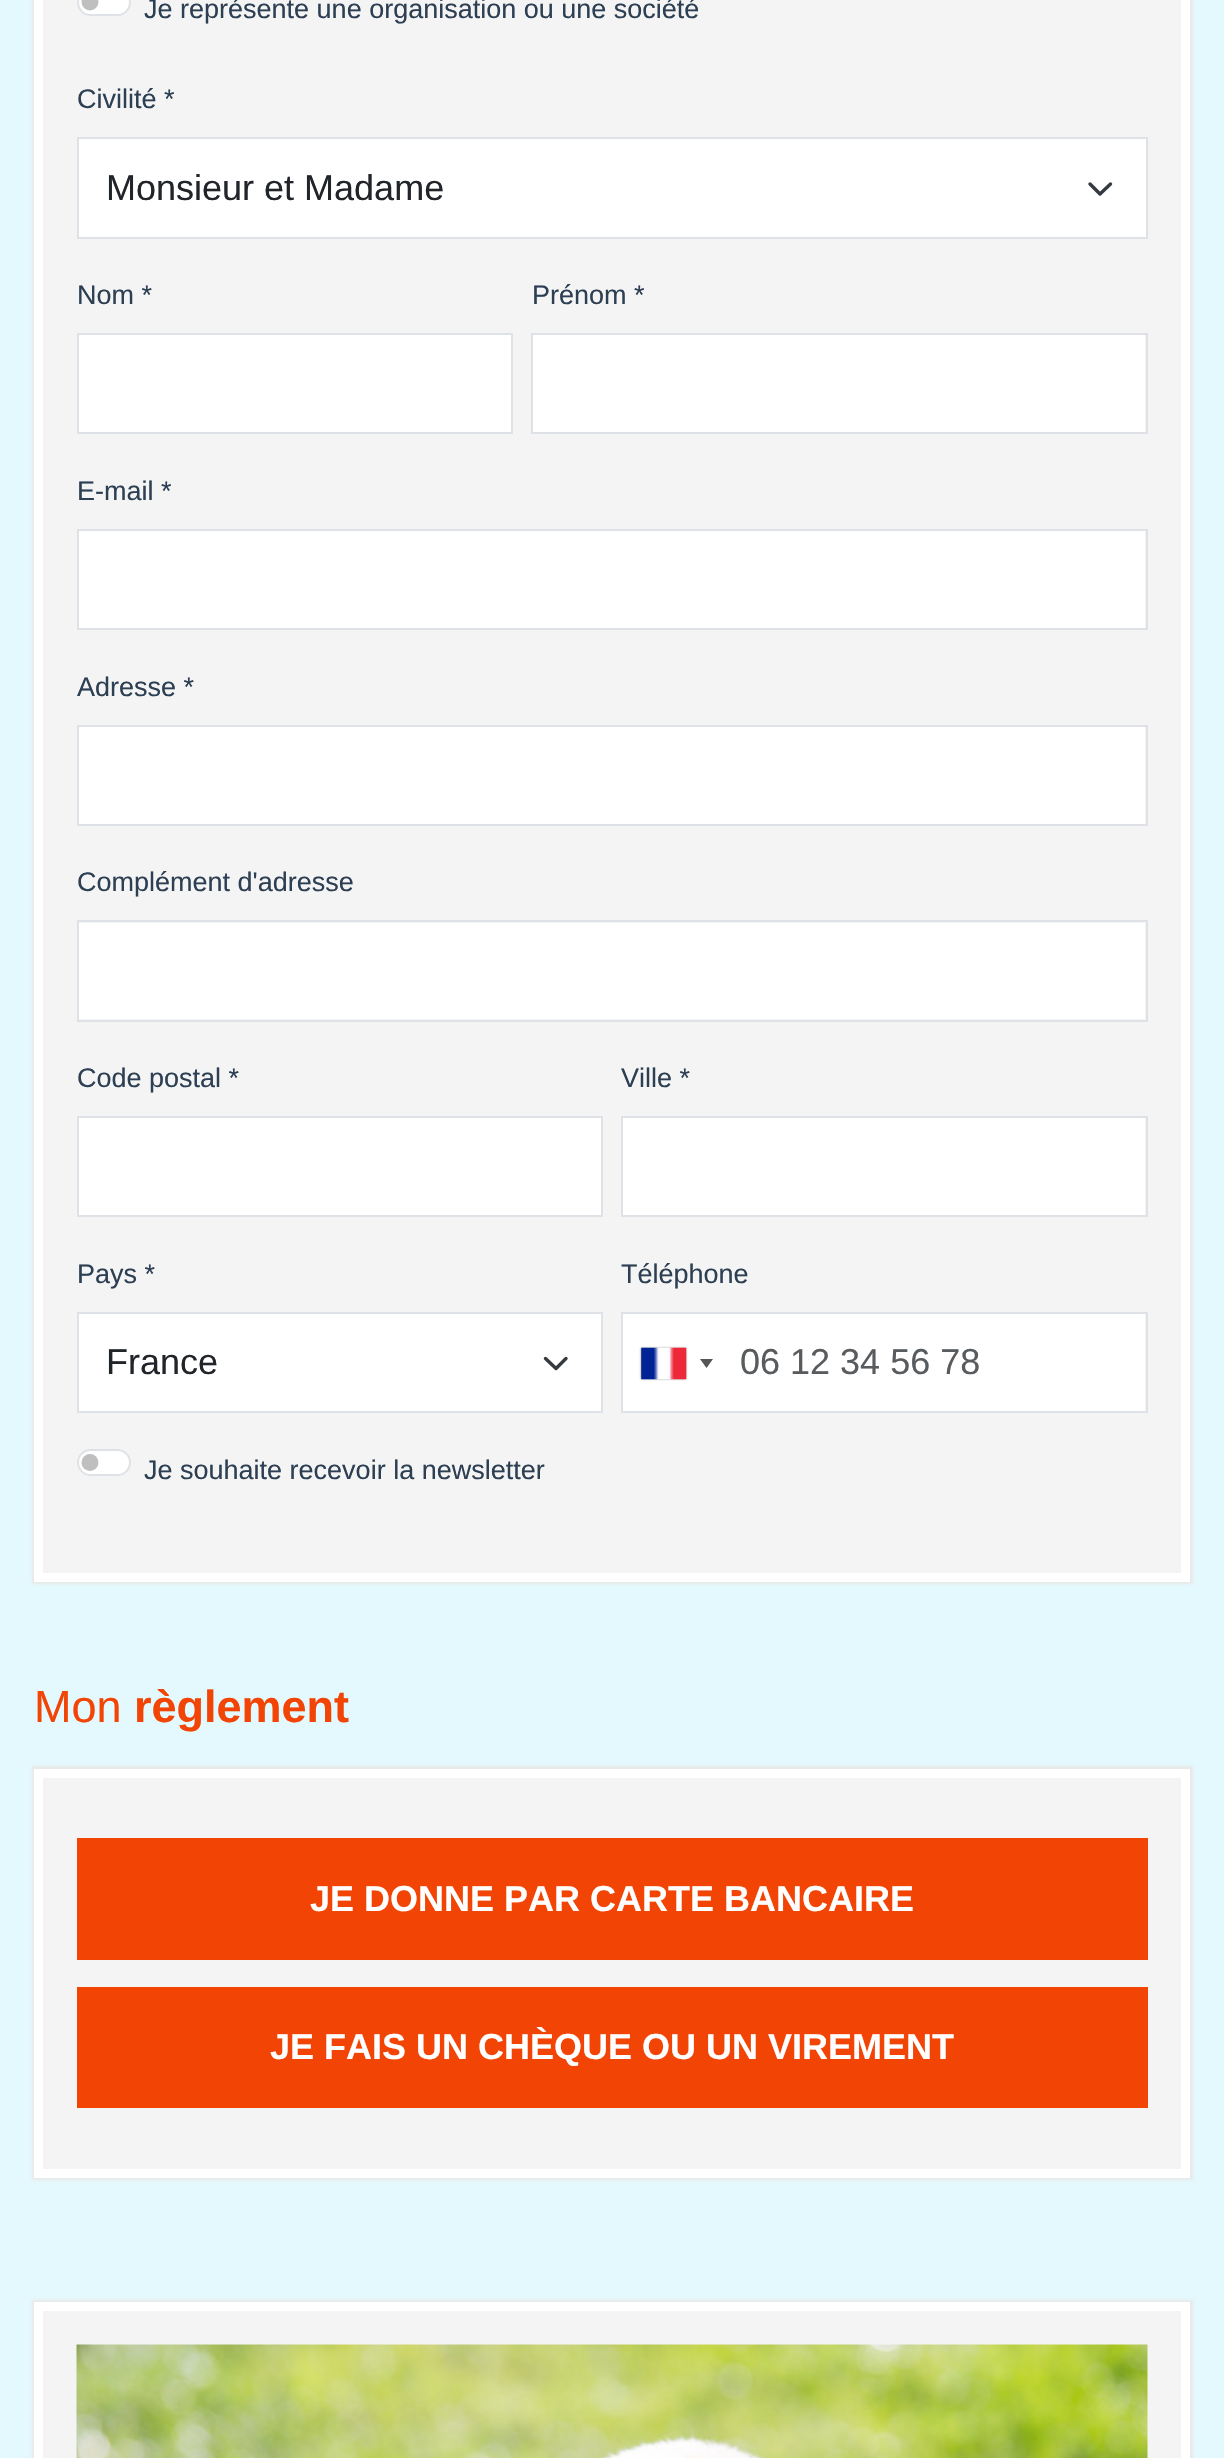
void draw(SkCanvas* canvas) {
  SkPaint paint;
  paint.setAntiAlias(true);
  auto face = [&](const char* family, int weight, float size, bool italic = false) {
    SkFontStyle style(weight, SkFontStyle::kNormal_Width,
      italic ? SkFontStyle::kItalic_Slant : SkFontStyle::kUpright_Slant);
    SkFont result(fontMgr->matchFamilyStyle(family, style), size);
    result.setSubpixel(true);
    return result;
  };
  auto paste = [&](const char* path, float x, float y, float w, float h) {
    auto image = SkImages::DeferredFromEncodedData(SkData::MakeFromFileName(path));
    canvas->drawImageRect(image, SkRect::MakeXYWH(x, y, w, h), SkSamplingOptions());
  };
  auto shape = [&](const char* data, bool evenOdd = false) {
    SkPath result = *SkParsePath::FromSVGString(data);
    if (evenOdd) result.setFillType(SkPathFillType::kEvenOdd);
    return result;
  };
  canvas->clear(0xffe4f9fd);
  paint.setColor(0xffe9e9e9);
  paint.setMaskFilter(SkMaskFilter::MakeBlur(kNormal_SkBlurStyle, 1));
  canvas->drawRect(SkRect::MakeXYWH(32, -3, 1161, 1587), paint);
  paint.setMaskFilter(nullptr);
  paint.setColor(0xfff4f4f4);
  canvas->drawRect(SkRect::MakeXYWH(38.5f, -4.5f, 1147, 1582), paint);
  paint.setStroke(true);
  paint.setStrokeWidth(9);
  paint.setColor(0xffffffff);
  canvas->drawRect(SkRect::MakeXYWH(38.5f, -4.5f, 1147, 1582), paint);
  paint.setStroke(false);
  canvas->drawRoundRect(SkRect::MakeXYWH(77, -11, 54, 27), 13.5f, 13.5f, paint);
  paint.setColor(0xffbfbfbf);
  canvas->drawCircle(90, 2, 8.5f, paint);
  paint.setStroke(true);
  paint.setStrokeWidth(2);
  paint.setColor(0xffdee2e6);
  canvas->drawRoundRect(SkRect::MakeXYWH(78, -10, 52, 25), 12.5f, 12.5f, paint);
  paint.setStroke(false);
  paint.setColor(0xffffffff);
  canvas->drawRect(SkRect::MakeXYWH(79, 139, 1067, 98), paint);
  paint.setStroke(true);
  paint.setStrokeWidth(3.4f);
  paint.setStrokeCap(SkPaint::kRound_Cap);
  paint.setStrokeJoin(SkPaint::kRound_Join);
  paint.setColor(0xff343a40);
  canvas->drawPath(shape("M1090 184L1100 194L1110.5 184"), paint);
  paint.setStrokeWidth(2);
  paint.setStrokeCap(SkPaint::kButt_Cap);
  paint.setStrokeJoin(SkPaint::kMiter_Join);
  paint.setColor(0xffdee2e6);
  canvas->drawRect(SkRect::MakeXYWH(78, 138, 1069, 100), paint);
  paint.setStroke(false);
  paint.setColor(0xffffffff);
  canvas->drawRect(SkRect::MakeXYWH(78, 334, 434, 99), paint);
  paint.setStroke(true);
  paint.setColor(0xffdee2e6);
  canvas->drawRect(SkRect::MakeXYWH(78, 334, 434, 99), paint);
  paint.setStroke(false);
  paint.setColor(0xffffffff);
  canvas->drawRect(SkRect::MakeXYWH(533, 335, 612, 97), paint);
  paint.setStroke(true);
  paint.setColor(0xffdee2e6);
  canvas->drawRect(SkRect::MakeXYWH(532, 334, 615, 99), paint);
  paint.setStroke(false);
  paint.setColor(0xffffffff);
  canvas->drawRect(SkRect::MakeXYWH(79, 531, 1066, 97), paint);
  paint.setStroke(true);
  paint.setColor(0xffdee2e6);
  canvas->drawRect(SkRect::MakeXYWH(78, 530, 1069, 99), paint);
  paint.setStroke(false);
  paint.setColor(0xffffffff);
  canvas->drawRect(SkRect::MakeXYWH(79, 727, 1066, 97), paint);
  paint.setStroke(true);
  paint.setColor(0xffdee2e6);
  canvas->drawRect(SkRect::MakeXYWH(78, 726, 1069, 99), paint);
  paint.setStroke(false);
  paint.setColor(0xffffffff);
  canvas->drawRect(SkRect::MakeXYWH(79, 923, 1066, 96), paint);
  paint.setStroke(true);
  paint.setColor(0xffdee2e6);
  canvas->drawRect(SkRect::MakeXYWH(78, 921, 1069, 100), paint);
  paint.setStroke(false);
  paint.setColor(0xffffffff);
  canvas->drawRect(SkRect::MakeXYWH(78, 1117, 524, 99), paint);
  paint.setStroke(true);
  paint.setColor(0xffdee2e6);
  canvas->drawRect(SkRect::MakeXYWH(78, 1117, 524, 99), paint);
  paint.setStroke(false);
  paint.setColor(0xffffffff);
  canvas->drawRect(SkRect::MakeXYWH(623, 1118, 522, 97), paint);
  paint.setStroke(true);
  paint.setColor(0xffdee2e6);
  canvas->drawRect(SkRect::MakeXYWH(622, 1117, 525, 99), paint);
  paint.setStroke(false);
  paint.setColor(0xffffffff);
  canvas->drawRect(SkRect::MakeXYWH(79, 1314, 522, 97), paint);
  paint.setStroke(true);
  paint.setStrokeWidth(3.4f);
  paint.setStrokeCap(SkPaint::kRound_Cap);
  paint.setStrokeJoin(SkPaint::kRound_Join);
  paint.setColor(0xff343a40);
  canvas->drawPath(shape("M545.5 1358.5L556 1368.5L566 1358.5"), paint);
  paint.setStrokeWidth(2);
  paint.setStrokeCap(SkPaint::kButt_Cap);
  paint.setStrokeJoin(SkPaint::kMiter_Join);
  paint.setColor(0xffdee2e6);
  canvas->drawRect(SkRect::MakeXYWH(78, 1313, 524, 99), paint);
  paint.setStroke(false);
  paint.setColor(0xffffffff);
  canvas->drawRect(SkRect::MakeXYWH(623, 1314, 522, 97), paint);
  paint.setStroke(true);
  paint.setColor(0xffdee2e6);
  canvas->drawRect(SkRect::MakeXYWH(622, 1313, 525, 99), paint);
  paint.setStroke(false);
  paint.setColor(0xff888888);
  paint.setMaskFilter(SkMaskFilter::MakeBlur(kNormal_SkBlurStyle, 1));
  canvas->drawRect(SkRect::MakeXYWH(641, 1348, 45, 31), paint);
  paint.setMaskFilter(nullptr);
  paste("img/1.png", 641, 1347, 46, 33);
  paint.setColor(0xff555555);
  canvas->drawPath(shape("M700 1359H713L706.5 1368Z"), paint);
  paint.setColor(0xffffffff);
  canvas->drawRoundRect(SkRect::MakeXYWH(77, 1449, 54, 27), 13.5f, 13.5f, paint);
  paint.setColor(0xffbfbfbf);
  canvas->drawCircle(90, 1462.5f, 8.5f, paint);
  paint.setStroke(true);
  paint.setColor(0xffdee2e6);
  canvas->drawRoundRect(SkRect::MakeXYWH(78, 1450, 52, 25), 12.5f, 12.5f, paint);
  paint.setStroke(false);
  paint.setColor(0xffe9e9e9);
  paint.setMaskFilter(SkMaskFilter::MakeBlur(kNormal_SkBlurStyle, 1));
  canvas->drawRect(SkRect::MakeXYWH(32, 1766, 1161, 414), paint);
  paint.setMaskFilter(nullptr);
  paint.setColor(0xfff4f4f4);
  canvas->drawRect(SkRect::MakeXYWH(38.5f, 1773.5f, 1147, 400), paint);
  paint.setStroke(true);
  paint.setStrokeWidth(9);
  paint.setColor(0xffffffff);
  canvas->drawRect(SkRect::MakeXYWH(38.5f, 1773.5f, 1147, 400), paint);
  paint.setStroke(false);
  paint.setColor(0xfff24405);
  canvas->drawRect(SkRect::MakeXYWH(77, 1838, 1071, 122), paint);
  canvas->drawRect(SkRect::MakeXYWH(77, 1987, 1071, 121), paint);
  paint.setColor(0xffe9e9e9);
  paint.setMaskFilter(SkMaskFilter::MakeBlur(kNormal_SkBlurStyle, 1));
  canvas->drawRect(SkRect::MakeXYWH(32, 2300, 1161, 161), paint);
  paint.setMaskFilter(nullptr);
  paint.setColor(0xfff4f4f4);
  canvas->drawRect(SkRect::MakeXYWH(38.5f, 2306.5f, 1147, 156), paint);
  paint.setStroke(true);
  paint.setColor(0xffffffff);
  canvas->drawRect(SkRect::MakeXYWH(38.5f, 2306.5f, 1147, 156), paint);
  paste("img/2.png", 76, 2344, 1072, 114);
  auto f0 = face("Liberation Sans", 400, 27);
  paint.setStroke(false);
  paint.setColor(0xff2d3f53);
  canvas->drawString("Je représente une organisation ou une société", 144, 18, f0, paint);
  canvas->drawString("Civilité *", 77, 108, f0, paint);
  auto f1 = face("Liberation Sans", 400, 36);
  paint.setColor(0xff212529);
  canvas->drawString("Monsieur et Madame", 106, 200, f1, paint);
  paint.setColor(0xff2d3f53);
  {
    const struct { const char* s; float x, y; } items[] = {
      {"Nom *", 77, 304},
      {"Prénom *", 532, 304},
      {"E-mail *", 77, 500},
      {"Adresse *", 77, 696},
      {"Complément d'adresse", 77, 891},
      {"Code postal *", 77, 1087},
      {"Ville *", 621, 1087},
      {"Pays *", 77, 1283},
    };
    for (auto [s, x, y] : items) {
      canvas->drawString(s, x, y, f0, paint);
    }
  }
  paint.setColor(0xff212529);
  canvas->drawString("France", 106, 1374, f1, paint);
  paint.setColor(0xff2d3f53);
  canvas->drawString("Téléphone", 621, 1283, f0, paint);
  paint.setColor(0xff595c5f);
  canvas->drawString("06 12 34 56 78", 740, 1374, f1, paint);
  paint.setColor(0xff2d3f53);
  canvas->drawString("Je souhaite recevoir la newsletter", 144, 1479, f0, paint);
  auto f2 = face("Liberation Sans", 400, 45);
  paint.setColor(0xfff24405);
  canvas->drawString("Mon", 34, 1722, f2, paint);
  auto f3 = face("Liberation Sans", 700, 45);
  canvas->drawString("règlement", 134, 1722, f3, paint);
  auto f4 = face("Liberation Sans", 700, 36);
  paint.setColor(0xffffffff);
  canvas->drawString("JE DONNE PAR CARTE BANCAIRE", 310, 1911, f4, paint);
  canvas->drawString("JE FAIS UN CHÈQUE OU UN VIREMENT", 270, 2059, f4, paint);
}
